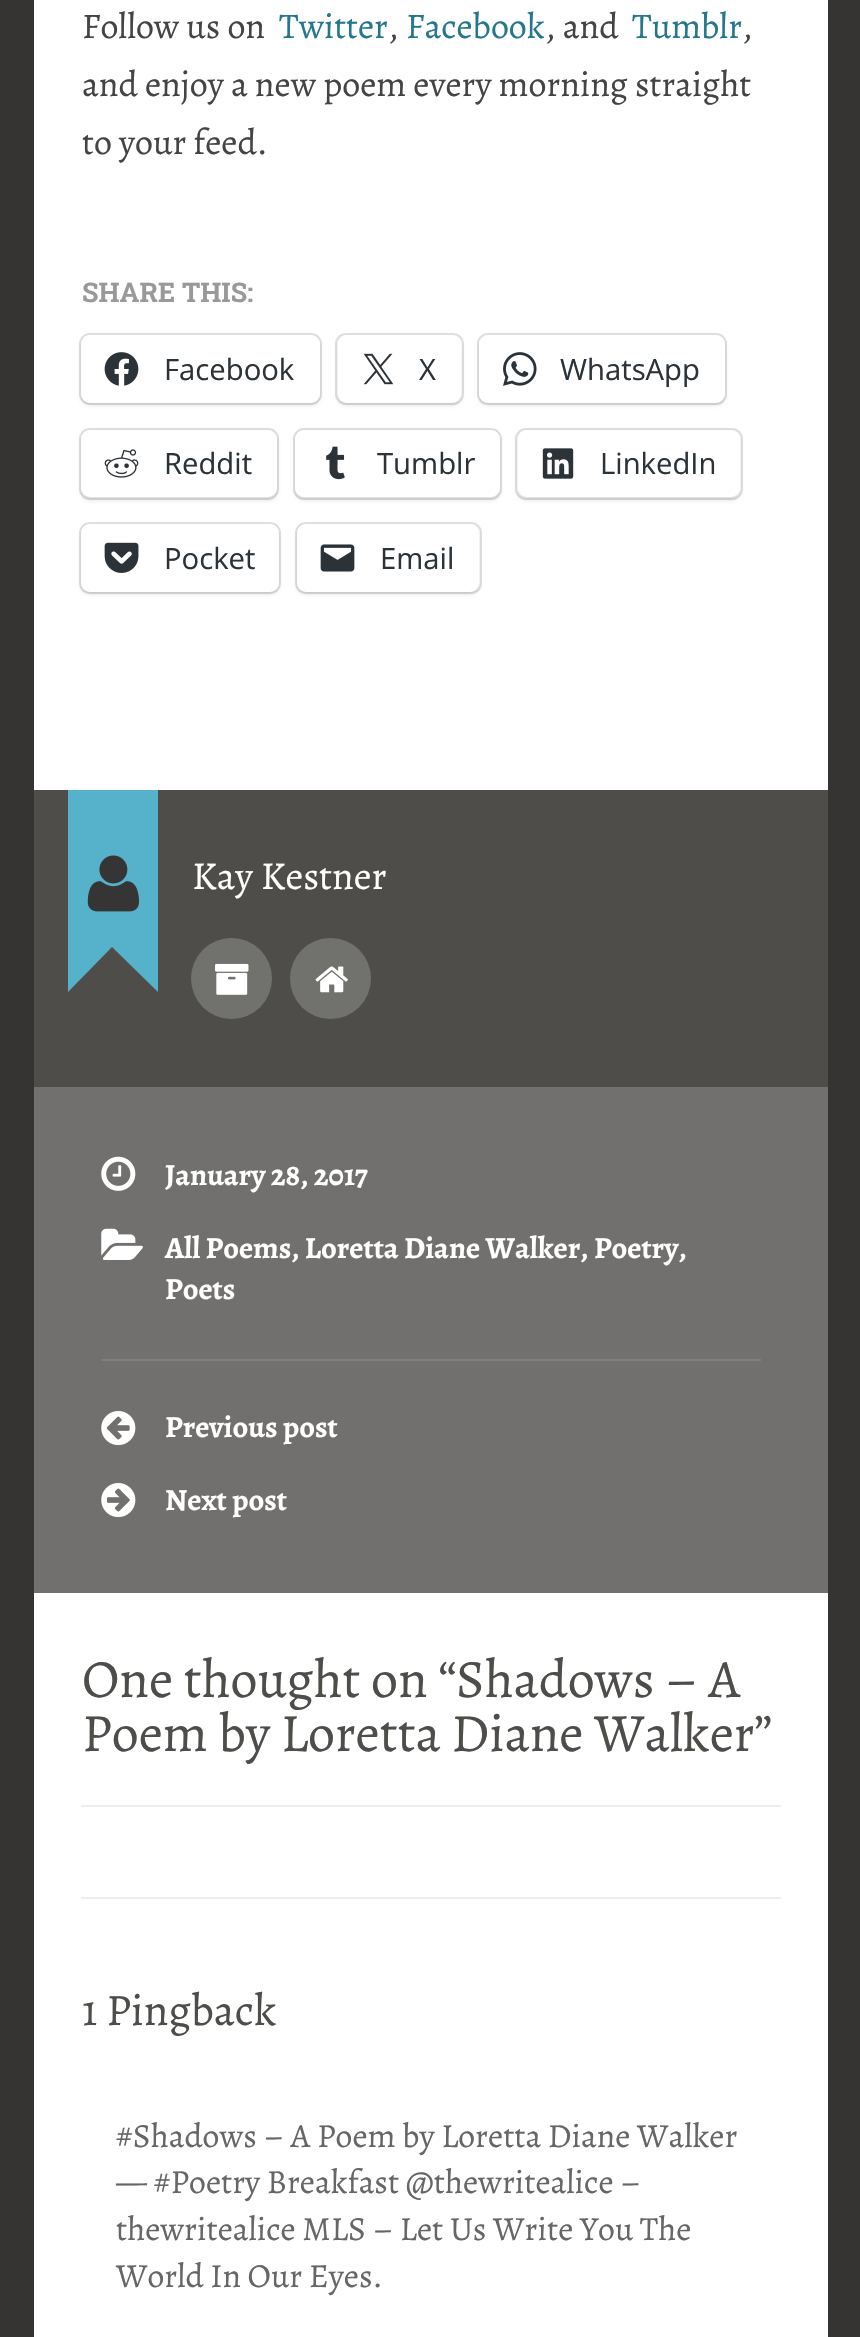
void draw(SkCanvas* canvas) {
  SkPaint paint;
  paint.setAntiAlias(true);
  auto face = [&](const char* family, int weight, float size, bool italic = false) {
    SkFontStyle style(weight, SkFontStyle::kNormal_Width,
      italic ? SkFontStyle::kItalic_Slant : SkFontStyle::kUpright_Slant);
    SkFont result(fontMgr->matchFamilyStyle(family, style), size);
    result.setSubpixel(true);
    return result;
  };
  auto paste = [&](const char* path, float x, float y, float w, float h) {
    auto image = SkImages::DeferredFromEncodedData(SkData::MakeFromFileName(path));
    canvas->drawImageRect(image, SkRect::MakeXYWH(x, y, w, h), SkSamplingOptions());
  };
  auto shape = [&](const char* data, bool evenOdd = false) {
    SkPath result = *SkParsePath::FromSVGString(data);
    if (evenOdd) result.setFillType(SkPathFillType::kEvenOdd);
    return result;
  };
  canvas->clear(0xff353432);
  paint.setColor(0xffffffff);
  canvas->drawRect(SkRect::MakeXYWH(34, 0, 794, 2337), paint);
  paint.setStroke(true);
  paint.setStrokeWidth(2);
  paint.setColor(0xffe0e0e0);
  canvas->drawRoundRect(SkRect::MakeXYWH(80, 334, 241, 70), 10, 10, paint);
  paint.setStroke(false);
  paint.setColor(0x1f000000);
  paint.setMaskFilter(SkMaskFilter::MakeBlur(kNormal_SkBlurStyle, 2));
  canvas->drawRoundRect(SkRect::MakeXYWH(81, 338, 239, 67), 9, 9, paint);
  paint.setMaskFilter(nullptr);
  paint.setColor(0xffffffff);
  canvas->drawRoundRect(SkRect::MakeXYWH(81, 335, 239, 68), 9, 9, paint);
  paste("img/1.png", 104, 352, 35, 34);
  paint.setStroke(true);
  paint.setColor(0xffe0e0e0);
  canvas->drawRoundRect(SkRect::MakeXYWH(336, 334, 127, 70), 10, 10, paint);
  paint.setStroke(false);
  paint.setColor(0x1f000000);
  paint.setMaskFilter(SkMaskFilter::MakeBlur(kNormal_SkBlurStyle, 2));
  canvas->drawRoundRect(SkRect::MakeXYWH(338, 338, 123, 67), 9, 9, paint);
  paint.setMaskFilter(nullptr);
  paint.setColor(0xffffffff);
  canvas->drawRoundRect(SkRect::MakeXYWH(338, 335, 123, 68), 9, 9, paint);
  paste("img/2.png", 363, 353, 31, 32);
  paint.setStroke(true);
  paint.setColor(0xffe0e0e0);
  canvas->drawRoundRect(SkRect::MakeXYWH(478, 334, 248, 70), 10, 10, paint);
  paint.setStroke(false);
  paint.setColor(0x1f000000);
  paint.setMaskFilter(SkMaskFilter::MakeBlur(kNormal_SkBlurStyle, 2));
  canvas->drawRoundRect(SkRect::MakeXYWH(479, 338, 246, 67), 9, 9, paint);
  paint.setMaskFilter(nullptr);
  paint.setColor(0xffffffff);
  canvas->drawRoundRect(SkRect::MakeXYWH(479, 335, 246, 68), 9, 9, paint);
  paste("img/3.png", 503, 352, 34, 34);
  paint.setStroke(true);
  paint.setColor(0xffe0e0e0);
  canvas->drawRoundRect(SkRect::MakeXYWH(80, 429, 198, 70), 10, 10, paint);
  paint.setStroke(false);
  paint.setColor(0x1f000000);
  paint.setMaskFilter(SkMaskFilter::MakeBlur(kNormal_SkBlurStyle, 2));
  canvas->drawRoundRect(SkRect::MakeXYWH(81, 432, 196, 68), 9, 9, paint);
  paint.setMaskFilter(nullptr);
  paint.setColor(0xffffffff);
  canvas->drawRoundRect(SkRect::MakeXYWH(81, 430, 196, 67), 9, 9, paint);
  paste("img/4.png", 104, 449, 35, 29);
  paint.setStroke(true);
  paint.setColor(0xffe0e0e0);
  canvas->drawRoundRect(SkRect::MakeXYWH(294, 429, 207, 70), 10, 10, paint);
  paint.setStroke(false);
  paint.setColor(0x1f000000);
  paint.setMaskFilter(SkMaskFilter::MakeBlur(kNormal_SkBlurStyle, 2));
  canvas->drawRoundRect(SkRect::MakeXYWH(295, 432, 205, 68), 9, 9, paint);
  paint.setMaskFilter(nullptr);
  paint.setColor(0xffffffff);
  canvas->drawRoundRect(SkRect::MakeXYWH(295, 430, 205, 67), 9, 9, paint);
  paste("img/5.png", 326, 446, 19, 34);
  paint.setStroke(true);
  paint.setColor(0xffe0e0e0);
  canvas->drawRoundRect(SkRect::MakeXYWH(516, 429, 226, 70), 10, 10, paint);
  paint.setStroke(false);
  paint.setColor(0x1f000000);
  paint.setMaskFilter(SkMaskFilter::MakeBlur(kNormal_SkBlurStyle, 2));
  canvas->drawRoundRect(SkRect::MakeXYWH(518, 432, 222, 68), 9, 9, paint);
  paint.setMaskFilter(nullptr);
  paint.setColor(0xffffffff);
  canvas->drawRoundRect(SkRect::MakeXYWH(518, 430, 222, 67), 9, 9, paint);
  paste("img/6.png", 542, 448, 32, 31);
  paint.setStroke(true);
  paint.setColor(0xffe0e0e0);
  canvas->drawRoundRect(SkRect::MakeXYWH(80, 523, 200, 70), 10, 10, paint);
  paint.setStroke(false);
  paint.setColor(0x1f000000);
  paint.setMaskFilter(SkMaskFilter::MakeBlur(kNormal_SkBlurStyle, 2));
  canvas->drawRoundRect(SkRect::MakeXYWH(81, 527, 198, 67), 9, 9, paint);
  paint.setMaskFilter(nullptr);
  paint.setColor(0xffffffff);
  canvas->drawRoundRect(SkRect::MakeXYWH(81, 524, 198, 68), 9, 9, paint);
  paste("img/7.png", 104, 542, 35, 31);
  paint.setStroke(true);
  paint.setColor(0xffe0e0e0);
  canvas->drawRoundRect(SkRect::MakeXYWH(296, 523, 185, 70), 10, 10, paint);
  paint.setStroke(false);
  paint.setColor(0x1f000000);
  paint.setMaskFilter(SkMaskFilter::MakeBlur(kNormal_SkBlurStyle, 2));
  canvas->drawRoundRect(SkRect::MakeXYWH(297, 527, 182, 67), 9, 9, paint);
  paint.setMaskFilter(nullptr);
  paint.setColor(0xffffffff);
  canvas->drawRoundRect(SkRect::MakeXYWH(297, 524, 182, 68), 9, 9, paint);
  paste("img/8.png", 320, 544, 35, 28);
  paint.setColor(0xff4e4d4a);
  canvas->drawRect(SkRect::MakeXYWH(34, 790, 794, 297), paint);
  paint.setColor(0xff56b2cb);
  canvas->drawPath(shape("M158 902V992L112 947Z"), paint);
  canvas->drawPath(shape("M68 992V902L112 947Z"), paint);
  canvas->drawRect(SkRect::MakeXYWH(68, 790, 90, 157), paint);
  paste("img/9.png", 87, 855, 52, 57);
  paint.setColor(0xff71716e);
  canvas->drawCircle(231.5f, 978.5f, 40.5f, paint);
  paste("img/10.png", 215, 963, 34, 32);
  canvas->drawCircle(330.5f, 978.5f, 40.5f, paint);
  paste("img/11.png", 315, 966, 33, 27);
  paint.setColor(0xff71706e);
  canvas->drawRect(SkRect::MakeXYWH(34, 1087, 794, 506), paint);
  paste("img/12.png", 101, 1156, 35, 35);
  paste("img/13.png", 101, 1228, 42, 32);
  paint.setColor(0xff7f7e7d);
  canvas->drawRect(SkRect::MakeXYWH(101, 1359, 660, 2), paint);
  paste("img/14.png", 101, 1411, 35, 35);
  paste("img/15.png", 101, 1483, 35, 35);
  paint.setColor(0xffeeeeee);
  canvas->drawRect(SkRect::MakeXYWH(81, 1805, 700, 2), paint);
  canvas->drawRect(SkRect::MakeXYWH(81, 1897, 700, 2), paint);
  auto f0 = face("Alegreya", 400, 36);
  paint.setColor(0xff444444);
  canvas->drawString("Follow us on", 82, 38, f0, paint);
  paint.setColor(0xff24778d);
  canvas->drawString("Twitter", 279, 38, f0, paint);
  paint.setColor(0xff444444);
  canvas->drawString(",", 388, 38, f0, paint);
  paint.setColor(0xff24778d);
  canvas->drawString("Facebook", 406, 38, f0, paint);
  paint.setColor(0xff444444);
  canvas->drawString(", and", 545, 38, f0, paint);
  paint.setColor(0xff24778d);
  canvas->drawString("Tumblr", 632, 38, f0, paint);
  paint.setColor(0xff444444);
  {
    const struct { const char* s; float x, y; } items[] = {
      {",", 742, 38},
      {"and enjoy a new poem every morning straight", 82, 96},
      {"to your feed.", 82, 154},
    };
    for (auto [s, x, y] : items) {
      canvas->drawString(s, x, y, f0, paint);
    }
  }
  auto f1 = face("Roboto Slab", 700, 27);
  paint.setColor(0xff999999);
  canvas->drawString("SHARE THIS:", 82, 302, f1, paint);
  auto f2 = face("Open Sans", 400, 29.25f);
  paint.setColor(0xff2c3338);
  {
    const struct { const char* s; float x, y; } items[] = {
      {"Facebook", 164, 380},
      {"X", 419, 380},
      {"WhatsApp", 560, 380},
      {"Reddit", 164, 474},
      {"Tumblr", 377, 474},
      {"LinkedIn", 600, 474},
      {"Pocket", 164, 569},
      {"Email", 380, 569},
    };
    for (auto [s, x, y] : items) {
      canvas->drawString(s, x, y, f2, paint);
    }
  }
  auto f3 = face("Alegreya", 400, 39.5f);
  paint.setColor(0xffffffff);
  canvas->drawString("Kay Kestner", 192, 889, f3, paint);
  auto f4 = face("Alegreya", 700, 30.6f);
  {
    const struct { const char* s; float x, y; } items[] = {
      {"January 28, 2017", 165, 1185},
      {"All Poems, Loretta Diane Walker, Poetry,", 165, 1258},
      {"Poets", 165, 1299},
      {"Previous post", 165, 1437},
      {"Next post", 165, 1510},
    };
    for (auto [s, x, y] : items) {
      canvas->drawString(s, x, y, f4, paint);
    }
  }
  auto f5 = face("Alegreya", 400, 54);
  paint.setColor(0xff4e4d4a);
  canvas->drawString("One thought on “Shadows – A", 82, 1697, f5, paint);
  canvas->drawString("Poem by Loretta Diane Walker”", 82, 1751, f5, paint);
  auto f6 = face("Alegreya", 400, 45);
  canvas->drawString("1 Pingback", 82, 2025, f6, paint);
  auto f7 = face("Alegreya", 400, 33.75f);
  paint.setColor(0xff666666);
  {
    const struct { const char* s; float x, y; } items[] = {
      {"#Shadows – A Poem by Loretta Diane Walker", 116, 2147},
      {"— #Poetry Breakfast @thewritealice –", 116, 2193},
      {"thewritealice MLS – Let Us Write You The", 116, 2240},
      {"World In Our Eyes.", 116, 2287},
    };
    for (auto [s, x, y] : items) {
      canvas->drawString(s, x, y, f7, paint);
    }
  }
}
